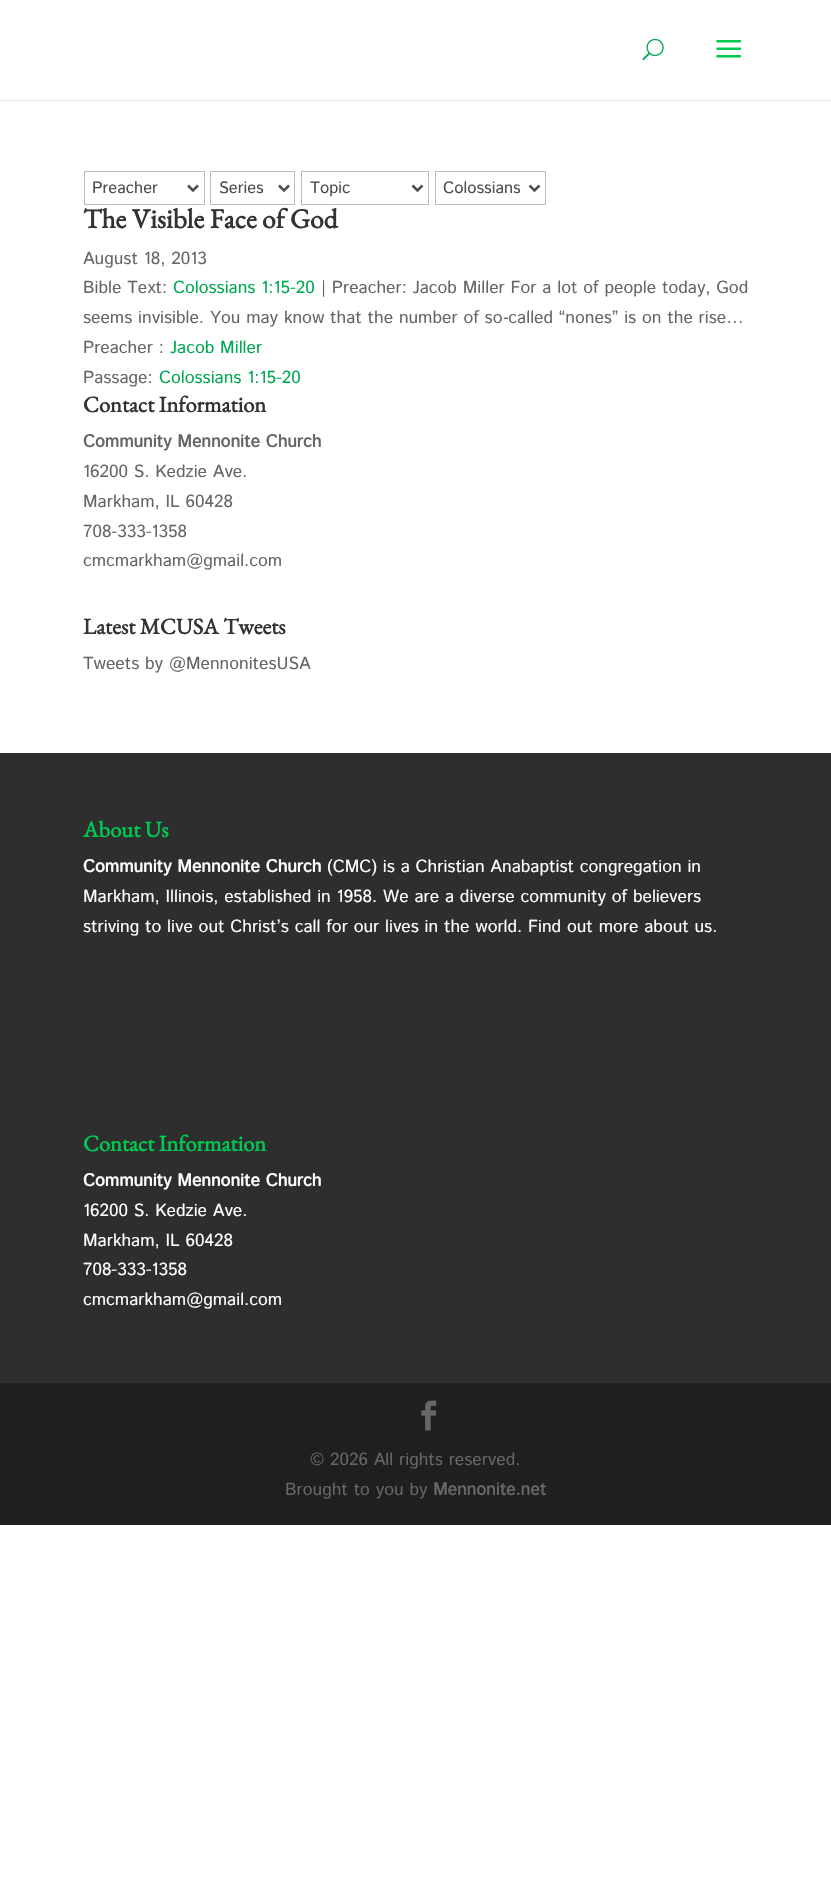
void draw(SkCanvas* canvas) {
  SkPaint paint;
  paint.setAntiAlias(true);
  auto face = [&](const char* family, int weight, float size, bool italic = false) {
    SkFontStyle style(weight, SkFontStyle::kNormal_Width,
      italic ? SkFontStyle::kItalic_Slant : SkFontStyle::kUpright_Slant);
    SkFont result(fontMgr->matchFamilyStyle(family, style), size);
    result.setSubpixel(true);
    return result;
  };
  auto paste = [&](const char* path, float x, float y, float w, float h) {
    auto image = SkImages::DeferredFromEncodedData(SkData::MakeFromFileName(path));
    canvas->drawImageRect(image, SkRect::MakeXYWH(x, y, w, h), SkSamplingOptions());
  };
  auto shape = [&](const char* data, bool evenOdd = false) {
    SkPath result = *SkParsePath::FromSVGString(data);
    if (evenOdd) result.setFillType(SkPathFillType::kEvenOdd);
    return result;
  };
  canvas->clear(0xffffffff);
  paint.setColor(0xffe6e6e6);
  canvas->drawRect(SkRect::MakeXYWH(0, 100, 831, 1), paint);
  paste("img/1.png", 642, 38, 22, 23);
  paste("img/2.png", 716, 40, 26, 18);
  paint.setStroke(true);
  paint.setStrokeWidth(1);
  paint.setColor(0xffbbbbbb);
  canvas->drawRect(SkRect::MakeXYWH(84.5f, 171.5f, 120, 33), paint);
  paint.setStrokeWidth(2.5f);
  paint.setColor(0xff4e4e4e);
  canvas->drawPath(shape("M188 185.5L193 190.5L198 185.5"), paint);
  paint.setStrokeWidth(1);
  paint.setColor(0xffbbbbbb);
  canvas->drawRect(SkRect::MakeXYWH(210.5f, 171.5f, 84, 33), paint);
  paint.setStrokeWidth(2.5f);
  paint.setColor(0xff4e4e4e);
  canvas->drawPath(shape("M279 185.5L284 190.5L289 185.5"), paint);
  paint.setStrokeWidth(1);
  paint.setColor(0xffbbbbbb);
  canvas->drawRect(SkRect::MakeXYWH(301.5f, 171.5f, 127, 33), paint);
  paint.setStrokeWidth(2.5f);
  paint.setColor(0xff4e4e4e);
  canvas->drawPath(shape("M412.5 185.5L417.5 190.5L422.5 185.5"), paint);
  paint.setStrokeWidth(1);
  paint.setColor(0xffbbbbbb);
  canvas->drawRect(SkRect::MakeXYWH(435.5f, 171.5f, 110, 33), paint);
  paint.setStrokeWidth(2.5f);
  paint.setColor(0xff4e4e4e);
  canvas->drawPath(shape("M529.5 185.5L534.5 190.5L539.5 185.5"), paint);
  paint.setStroke(false);
  paint.setColor(0xff2e2e2e);
  canvas->drawRect(SkRect::MakeXYWH(0, 753, 831, 630), paint);
  paint.setColor(0xff1f1f1f);
  canvas->drawRect(SkRect::MakeXYWH(0, 1383, 831, 142), paint);
  paste("img/3.png", 421, 1400, 16, 31);
  auto f0 = face("Istok Web", 400, 16.5f);
  paint.setColor(0xff4e4e4e);
  {
    const struct { const char* s; float x, y; } items[] = {
      {"Preacher", 92, 193},
      {"Series", 219, 193},
      {"Topic", 310, 193},
      {"Colossians", 443, 193},
    };
    for (auto [s, x, y] : items) {
      canvas->drawString(s, x, y, f0, paint);
    }
  }
  auto f1 = face("EB Garamond", 700, 27.5f);
  paint.setColor(0xff333333);
  canvas->drawString("The Visible Face of God", 83, 228, f1, paint);
  auto f2 = face("Istok Web", 400, 17.5f);
  paint.setColor(0xff666666);
  canvas->drawString("August 18, 2013", 83, 264, f2, paint);
  canvas->drawString("Bible Text:", 83, 293, f2, paint);
  paint.setColor(0xff00a851);
  canvas->drawString("Colossians 1:15-20", 173, 293, f2, paint);
  paint.setColor(0xff666666);
  canvas->drawString("| Preacher: Jacob Miller For a lot of people today, God", 321, 293, f2, paint);
  canvas->drawString("seems invisible. You may know that the number of so called “nones” is on the rise…", 83, 323, f2, paint);
  auto f3 = face("Liberation Sans", 400, 17.5f);
  canvas->drawString("‐", 503, 323, f3, paint);
  canvas->drawString("Preacher :", 83, 353, f2, paint);
  paint.setColor(0xff00a851);
  canvas->drawString("Jacob Miller", 170, 353, f2, paint);
  paint.setColor(0xff666666);
  canvas->drawString("Passage:", 83, 383, f2, paint);
  paint.setColor(0xff00a851);
  canvas->drawString("Colossians 1:15-20", 159, 383, f2, paint);
  auto f4 = face("EB Garamond", 700, 22.5f);
  paint.setColor(0xff333333);
  canvas->drawString("Contact Information", 83, 412, f4, paint);
  auto f5 = face("Istok Web", 700, 17.5f);
  paint.setColor(0xff666666);
  canvas->drawString("Community Mennonite Church", 83, 447, f5, paint);
  {
    const struct { const char* s; float x, y; } items[] = {
      {"16200 S. Kedzie Ave.", 83, 477},
      {"Markham, IL 60428", 83, 507},
      {"708-333-1358", 83, 537},
      {"cmcmarkham@gmail.com", 83, 566},
    };
    for (auto [s, x, y] : items) {
      canvas->drawString(s, x, y, f2, paint);
    }
  }
  paint.setColor(0xff333333);
  canvas->drawString("Latest MCUSA Tweets", 83, 634, f4, paint);
  paint.setColor(0xff666666);
  canvas->drawString("Tweets by @MennonitesUSA", 83, 669, f2, paint);
  paint.setColor(0xff00c851);
  canvas->drawString("About Us", 83, 837, f4, paint);
  paint.setColor(0xffffffff);
  canvas->drawString("Community Mennonite Church", 83, 872, f5, paint);
  {
    const struct { const char* s; float x, y; } items[] = {
      {"(CMC) is a Christian Anabaptist congregation in", 327, 872},
      {"Markham, Illinois, established in 1958. We are a diverse community of believers", 83, 902},
      {"striving to live out Christ’s call for our lives in the world. Find out more about us.", 83, 932},
    };
    for (auto [s, x, y] : items) {
      canvas->drawString(s, x, y, f2, paint);
    }
  }
  paint.setColor(0xff00c851);
  canvas->drawString("Contact Information", 83, 1151, f4, paint);
  paint.setColor(0xffffffff);
  canvas->drawString("Community Mennonite Church", 83, 1186, f5, paint);
  {
    const struct { const char* s; float x, y; } items[] = {
      {"16200 S. Kedzie Ave.", 83, 1216},
      {"Markham, IL 60428", 83, 1246},
      {"708-333-1358", 83, 1275},
      {"cmcmarkham@gmail.com", 83, 1305},
    };
    for (auto [s, x, y] : items) {
      canvas->drawString(s, x, y, f2, paint);
    }
  }
  paint.setColor(0xff666666);
  canvas->drawString("© 2026 All rights reserved.", 310, 1465, f2, paint);
  canvas->drawString("Brought to you by", 285, 1495, f2, paint);
  canvas->drawString("Mennonite.net", 433, 1495, f5, paint);
}
